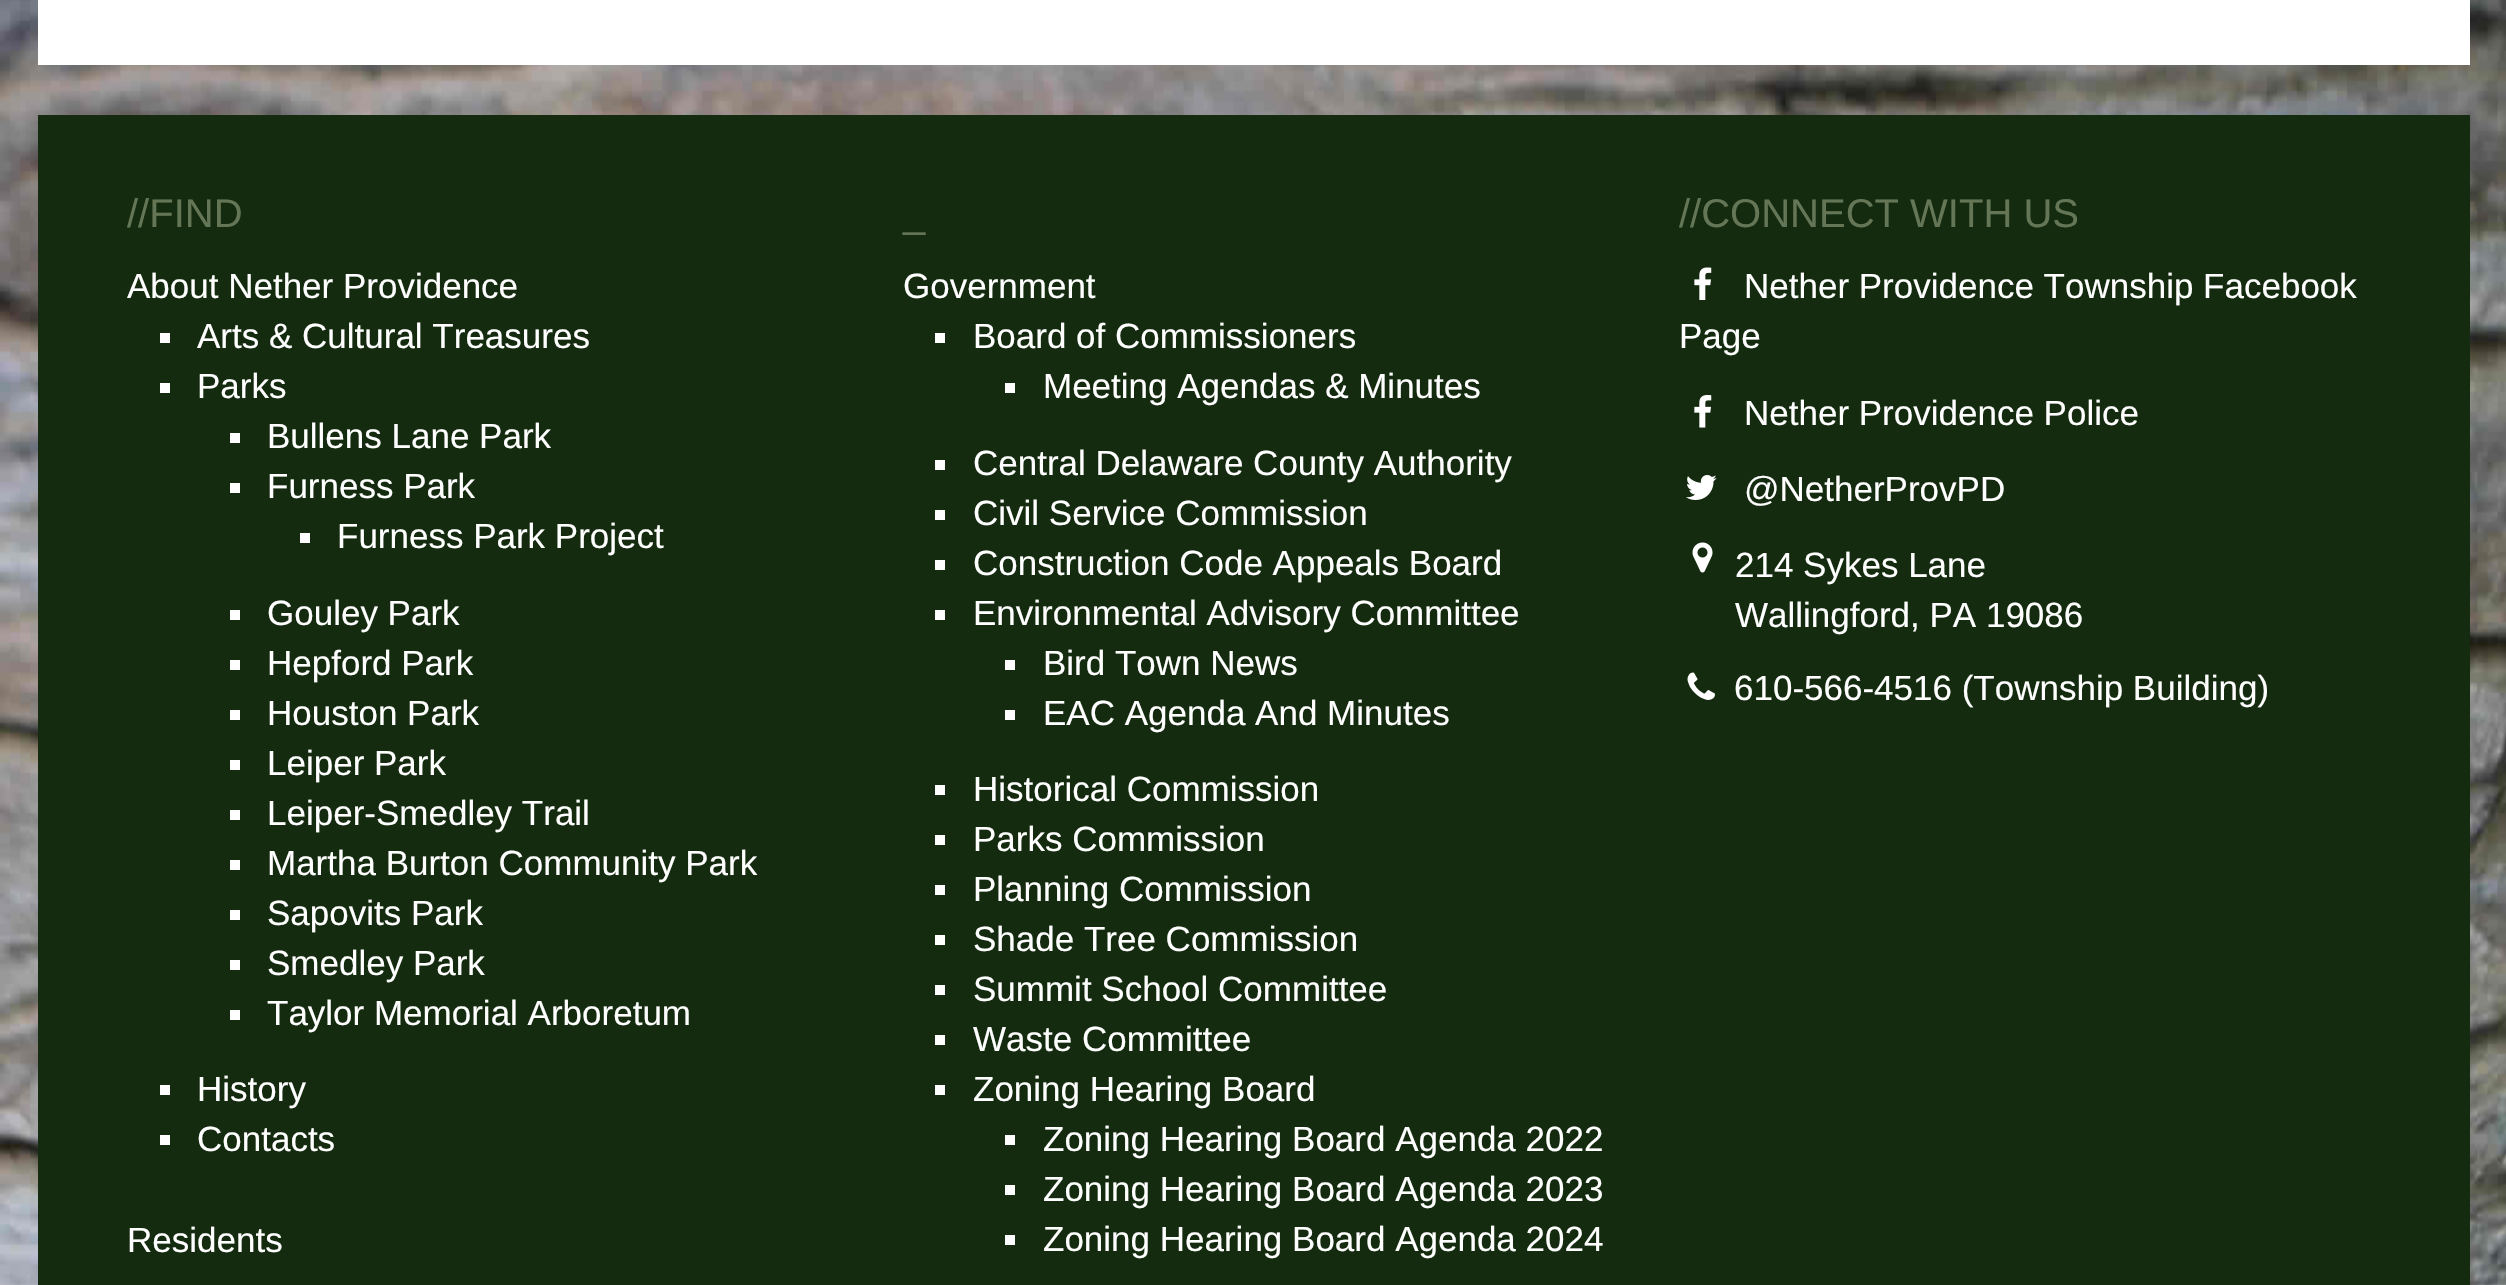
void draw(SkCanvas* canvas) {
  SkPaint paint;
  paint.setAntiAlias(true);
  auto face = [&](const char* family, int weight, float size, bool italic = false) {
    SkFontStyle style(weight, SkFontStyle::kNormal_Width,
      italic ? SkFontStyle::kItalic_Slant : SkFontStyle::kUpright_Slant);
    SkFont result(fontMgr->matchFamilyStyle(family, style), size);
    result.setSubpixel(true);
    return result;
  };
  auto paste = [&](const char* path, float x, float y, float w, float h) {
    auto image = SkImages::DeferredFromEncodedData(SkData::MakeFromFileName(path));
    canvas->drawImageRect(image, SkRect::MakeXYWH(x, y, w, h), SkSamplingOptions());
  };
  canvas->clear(0xffffffff);
  paste("img/1.png", 0, 0, 2506, 1285);
  {
    const struct { float x, y, w, h; SkColor color; } items[] = {
      {38, 0, 2432, 65, 0xffffffff},
      {38, 115, 2432, 1170, 0xff142b0f},
      {160, 333, 10, 10, 0xffffffff},
      {160, 383, 10, 10, 0xffffffff},
      {230, 433, 10, 10, 0xffffffff},
      {230, 483, 10, 10, 0xffffffff},
      {300, 533, 10, 10, 0xffffffff},
      {230, 610, 10, 10, 0xffffffff},
      {230, 660, 10, 10, 0xffffffff},
      {230, 710, 10, 10, 0xffffffff},
      {230, 760, 10, 10, 0xffffffff},
      {230, 810, 10, 10, 0xffffffff},
      {230, 860, 10, 10, 0xffffffff},
      {230, 910, 10, 10, 0xffffffff},
      {230, 960, 10, 10, 0xffffffff},
      {230, 1010, 10, 10, 0xffffffff},
      {160, 1085, 10, 10, 0xffffffff},
      {160, 1135, 10, 10, 0xffffffff},
      {935, 333, 10, 10, 0xffffffff},
      {1005, 383, 10, 10, 0xffffffff},
      {935, 460, 10, 10, 0xffffffff},
      {935, 510, 10, 10, 0xffffffff},
      {935, 560, 10, 10, 0xffffffff},
      {935, 610, 10, 10, 0xffffffff},
      {1005, 660, 10, 10, 0xffffffff},
      {1005, 710, 10, 10, 0xffffffff},
      {935, 785, 10, 10, 0xffffffff},
      {935, 835, 10, 10, 0xffffffff},
      {935, 885, 10, 10, 0xffffffff},
      {935, 935, 10, 10, 0xffffffff},
      {935, 985, 10, 10, 0xffffffff},
      {935, 1035, 10, 10, 0xffffffff},
      {935, 1085, 10, 10, 0xffffffff},
      {1005, 1135, 10, 10, 0xffffffff},
      {1005, 1185, 10, 10, 0xffffffff},
      {1005, 1235, 10, 10, 0xffffffff},
    };
    for (auto [x, y, w, h, color] : items) {
      paint.setColor(color);
      canvas->drawRect(SkRect::MakeXYWH(x, y, w, h), paint);
    }
  }
  paste("img/2.png", 1694, 267, 18, 33);
  paste("img/3.png", 1694, 395, 18, 33);
  paste("img/4.png", 1686, 475, 31, 25);
  paste("img/5.png", 1692, 542, 21, 31);
  paste("img/6.png", 1687, 672, 28, 28);
  auto f0 = face("Liberation Sans", 400, 40);
  paint.setColor(0xff647656);
  canvas->drawString("//FIND", 127, 227, f0, paint);
  auto f1 = face("Liberation Sans", 400, 35);
  paint.setColor(0xffffffff);
  {
    const struct { const char* s; float x, y; } items[] = {
      {"About Nether Providence", 127, 298},
      {"Arts & Cultural Treasures", 197, 348},
      {"Parks", 197, 398},
      {"Bullens Lane Park", 267, 448},
      {"Furness Park", 267, 498},
      {"Furness Park Project", 337, 548},
      {"Gouley Park", 267, 625},
      {"Hepford Park", 267, 675},
      {"Houston Park", 267, 725},
      {"Leiper Park", 267, 775},
      {"Leiper-Smedley Trail", 267, 825},
      {"Martha Burton Community Park", 267, 875},
      {"Sapovits Park", 267, 925},
      {"Smedley Park", 267, 975},
      {"Taylor Memorial Arboretum", 267, 1025},
      {"History", 197, 1101},
      {"Contacts", 197, 1151},
      {"Residents", 127, 1252},
    };
    for (auto [s, x, y] : items) {
      canvas->drawString(s, x, y, f1, paint);
    }
  }
  paint.setColor(0xff647656);
  canvas->drawString("_", 903, 227, f0, paint);
  paint.setColor(0xffffffff);
  {
    const struct { const char* s; float x, y; } items[] = {
      {"Government", 903, 298},
      {"Board of Commissioners", 973, 348},
      {"Meeting Agendas & Minutes", 1043, 398},
      {"Central Delaware County Authority", 973, 475},
      {"Civil Service Commission", 973, 525},
      {"Construction Code Appeals Board", 973, 575},
      {"Environmental Advisory Committee", 973, 625},
      {"Bird Town News", 1043, 675},
      {"EAC Agenda And Minutes", 1043, 725},
      {"Historical Commission", 973, 801},
      {"Parks Commission", 973, 851},
      {"Planning Commission", 973, 901},
      {"Shade Tree Commission", 973, 951},
      {"Summit School Committee", 973, 1001},
      {"Waste Committee", 973, 1051},
      {"Zoning Hearing Board", 973, 1101},
      {"Zoning Hearing Board Agenda 2022", 1043, 1151},
      {"Zoning Hearing Board Agenda 2023", 1043, 1201},
      {"Zoning Hearing Board Agenda 2024", 1043, 1251},
    };
    for (auto [s, x, y] : items) {
      canvas->drawString(s, x, y, f1, paint);
    }
  }
  paint.setColor(0xff647656);
  canvas->drawString("//CONNECT WITH US", 1679, 227, f0, paint);
  paint.setColor(0xffffffff);
  {
    const struct { const char* s; float x, y; } items[] = {
      {"Nether Providence Township Facebook", 1744, 298},
      {"Page", 1679, 348},
      {"Nether Providence Police", 1744, 425},
      {"@NetherProvPD", 1744, 501},
      {"214 Sykes Lane", 1735, 577},
      {"Wallingford, PA 19086", 1735, 627},
      {"610-566-4516 (Township Building)", 1734, 700},
    };
    for (auto [s, x, y] : items) {
      canvas->drawString(s, x, y, f1, paint);
    }
  }
}
